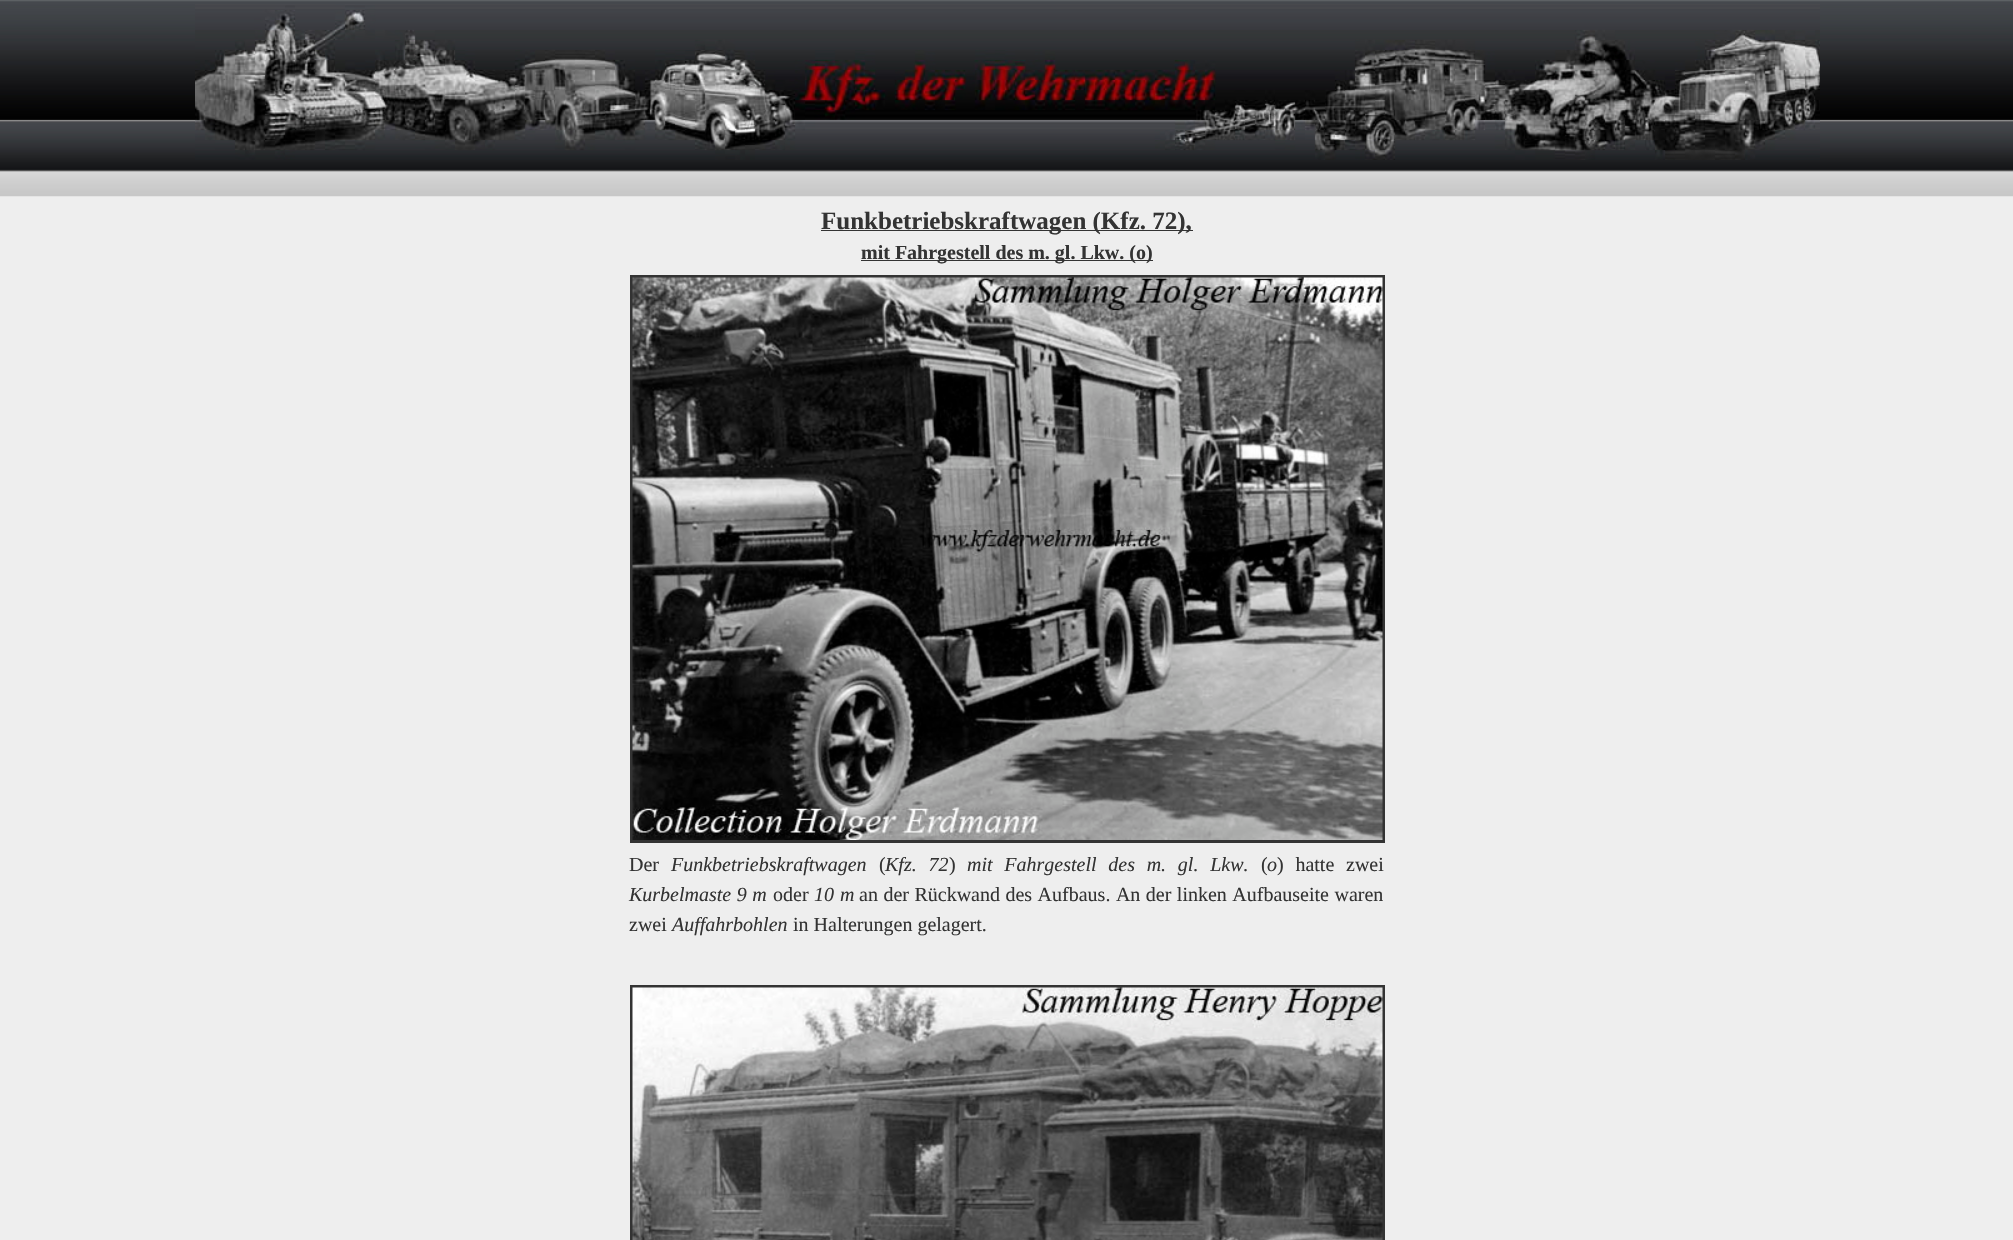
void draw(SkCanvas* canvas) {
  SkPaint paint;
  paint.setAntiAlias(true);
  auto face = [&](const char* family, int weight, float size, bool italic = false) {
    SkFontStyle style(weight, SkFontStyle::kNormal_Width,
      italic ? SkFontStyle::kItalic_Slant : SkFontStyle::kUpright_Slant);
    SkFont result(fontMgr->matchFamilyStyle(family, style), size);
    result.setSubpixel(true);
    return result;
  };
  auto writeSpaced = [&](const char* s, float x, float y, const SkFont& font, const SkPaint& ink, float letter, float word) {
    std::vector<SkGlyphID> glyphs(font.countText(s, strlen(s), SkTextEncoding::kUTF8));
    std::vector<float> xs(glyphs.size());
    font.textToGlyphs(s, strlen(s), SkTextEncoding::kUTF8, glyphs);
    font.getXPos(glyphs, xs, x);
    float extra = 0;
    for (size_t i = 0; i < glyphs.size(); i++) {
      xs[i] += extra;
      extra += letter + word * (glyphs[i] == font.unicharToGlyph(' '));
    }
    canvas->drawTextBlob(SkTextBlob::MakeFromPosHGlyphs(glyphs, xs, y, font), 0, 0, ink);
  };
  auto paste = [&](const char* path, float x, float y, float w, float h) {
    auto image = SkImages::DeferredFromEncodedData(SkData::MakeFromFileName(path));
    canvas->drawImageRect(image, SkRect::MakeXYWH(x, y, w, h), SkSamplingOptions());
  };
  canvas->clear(0xffeeeeee);
  paste("img/1.png", 0, 0, 2013, 197);
  paste("img/2.png", 195, 4, 1625, 156);
  paint.setColor(0xff333333);
  canvas->drawRect(SkRect::MakeXYWH(821, 230, 372, 1), paint);
  canvas->drawRect(SkRect::MakeXYWH(861, 260, 292, 1), paint);
  paint.setStroke(true);
  paint.setStrokeWidth(3);
  canvas->drawRect(SkRect::MakeXYWH(631.5f, 276.5f, 752, 565), paint);
  paste("img/3.png", 632, 277, 751, 563);
  canvas->drawRect(SkRect::MakeXYWH(631.5f, 986.5f, 752, 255), paint);
  paste("img/4.png", 632, 987, 751, 253);
  auto f0 = face("Liberation Serif", 700, 25);
  paint.setStroke(false);
  canvas->drawString("Funkbetriebskraftwagen (Kfz. 72),", 821, 229, f0, paint);
  auto f1 = face("Liberation Serif", 700, 20);
  canvas->drawString("mit Fahrgestell des m. gl. Lkw. (o)", 861, 259, f1, paint);
  auto f2 = face("Liberation Serif", 400, 20);
  canvas->drawString("Der", 629, 871, f2, paint);
  auto f3 = face("Liberation Serif", 400, 20, true);
  canvas->drawString("Funkbetriebskraftwagen", 671, 871, f3, paint);
  canvas->drawString("(", 879, 871, f2, paint);
  writeSpaced("Kfz. 72", 885, 871, f3, paint, 0, 6.75f);
  canvas->drawString(")", 949, 871, f2, paint);
  writeSpaced("mit Fahrgestell des m. gl. Lkw.", 967, 871, f3, paint, 0, 6.75f);
  canvas->drawString("(", 1261, 871, f2, paint);
  canvas->drawString("o", 1267, 871, f3, paint);
  writeSpaced(") hatte zwei", 1277, 871, f2, paint, 0, 6.75f);
  writeSpaced("Kurbelmaste 9 m", 629, 901, f3, paint, 0, 0.5f);
  canvas->drawString("oder", 773, 901, f2, paint);
  writeSpaced("10 m", 814, 901, f3, paint, 0, 1);
  writeSpaced("an der Rückwand des Aufbaus. An der linken Aufbauseite waren", 859, 901, f2, paint, 0, 0.5f);
  canvas->drawString("zwei", 629, 931, f2, paint);
  canvas->drawString("Auffahrbohlen", 672, 931, f3, paint);
  canvas->drawString("in Halterungen gelagert.", 793, 931, f2, paint);
}
